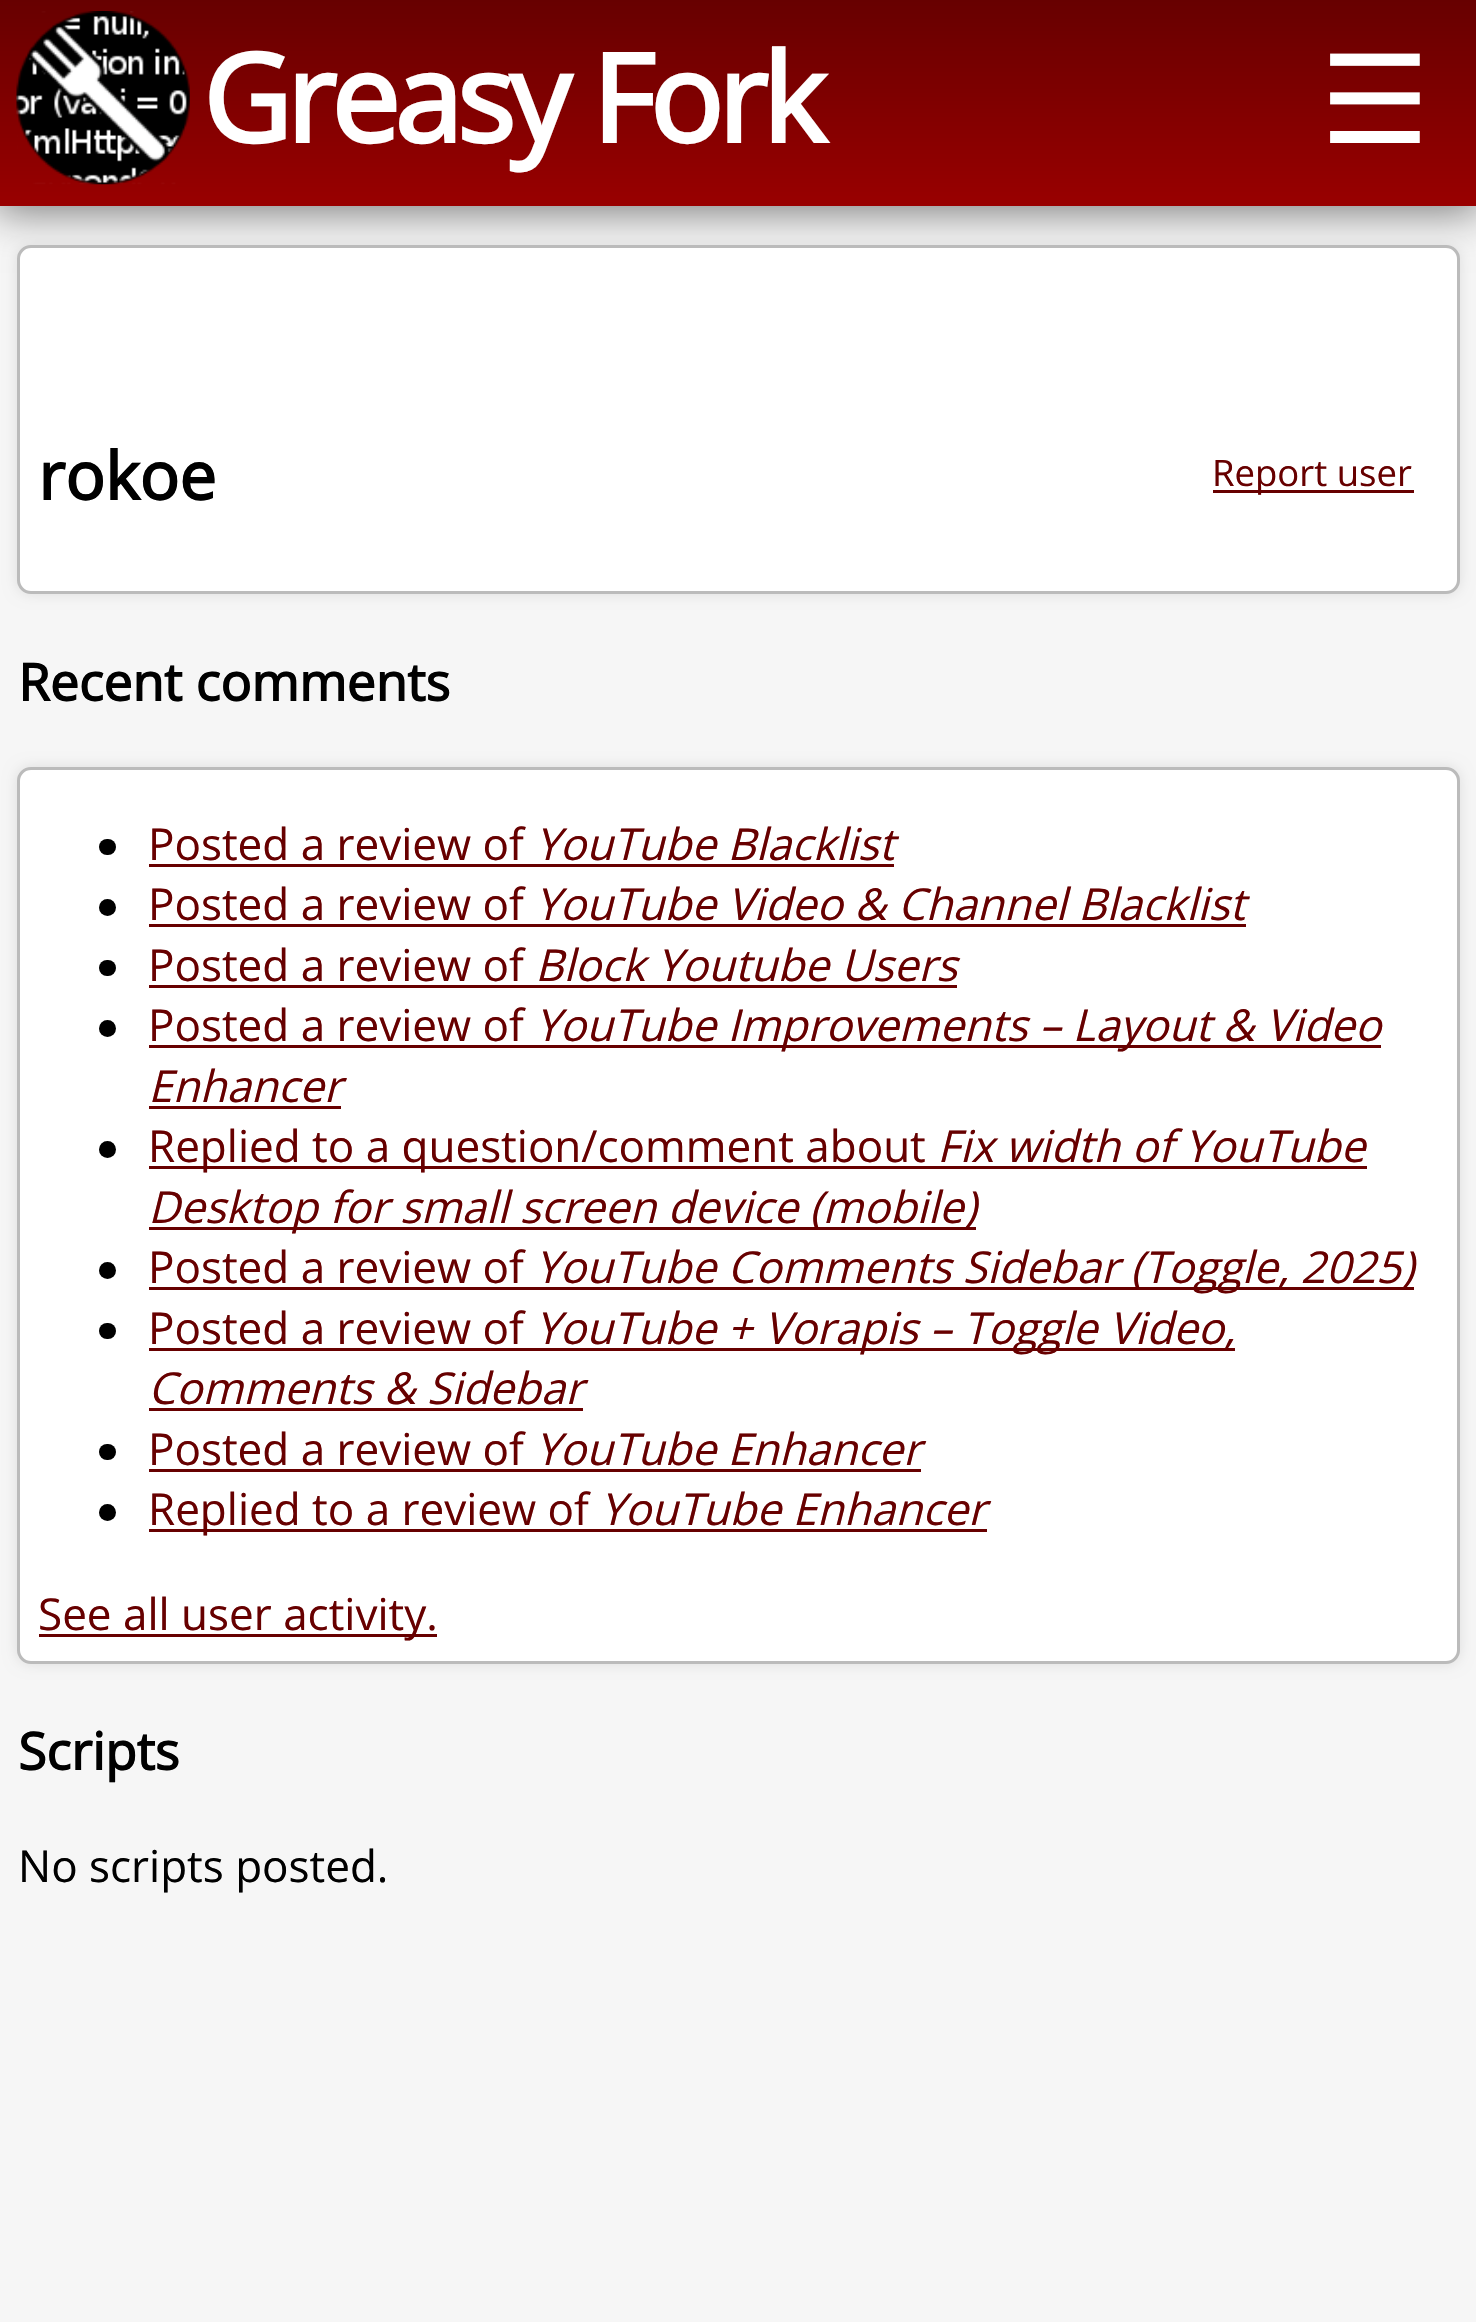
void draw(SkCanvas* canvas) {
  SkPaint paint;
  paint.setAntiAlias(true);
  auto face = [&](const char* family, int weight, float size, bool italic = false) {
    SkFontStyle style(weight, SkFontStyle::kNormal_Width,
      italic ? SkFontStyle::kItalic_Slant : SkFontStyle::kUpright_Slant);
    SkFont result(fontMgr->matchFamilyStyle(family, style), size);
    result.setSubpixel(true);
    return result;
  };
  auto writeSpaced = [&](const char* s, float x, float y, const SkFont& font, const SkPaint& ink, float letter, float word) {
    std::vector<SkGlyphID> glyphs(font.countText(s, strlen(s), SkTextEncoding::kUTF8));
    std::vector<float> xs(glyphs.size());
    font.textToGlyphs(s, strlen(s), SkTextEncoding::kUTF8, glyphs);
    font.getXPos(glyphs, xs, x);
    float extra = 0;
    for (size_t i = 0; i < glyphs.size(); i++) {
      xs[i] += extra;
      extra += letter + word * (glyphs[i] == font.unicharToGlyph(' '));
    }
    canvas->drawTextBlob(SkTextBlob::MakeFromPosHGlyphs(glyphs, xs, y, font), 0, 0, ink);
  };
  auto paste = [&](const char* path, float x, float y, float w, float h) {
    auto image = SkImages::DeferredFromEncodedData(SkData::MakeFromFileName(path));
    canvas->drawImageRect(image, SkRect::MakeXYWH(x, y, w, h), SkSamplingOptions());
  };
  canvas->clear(0xfff6f6f6);
  paint.setColor(0x80000000);
  paint.setMaskFilter(SkMaskFilter::MakeBlur(kNormal_SkBlurStyle, 20.5f));
  canvas->drawRect(SkRect::MakeXYWH(-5, -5, 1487, 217), paint);
  paint.setMaskFilter(nullptr);
  {
    const SkColor colors[] = {0xff670000, 0xff990000};
    const float stops[] = {0, 1};
    const SkPoint ends[] = {{738, 0}, {738, 206}};
    paint.setShader(SkGradientShader::MakeLinear(ends, colors, stops, 2, SkTileMode::kClamp));
    paint.setAlpha(255);
  }
  canvas->drawRect(SkRect::MakeXYWH(0, 0, 1476, 206), paint);
  paste("img/1.png", 16, 11, 174, 174);
  paint.setShader(nullptr);
  paint.setColor(0xffdddddd);
  paint.setMaskFilter(SkMaskFilter::MakeBlur(kNormal_SkBlurStyle, 7));
  canvas->drawRoundRect(SkRect::MakeXYWH(17, 245, 1443, 349), 14, 14, paint);
  paint.setMaskFilter(nullptr);
  paint.setColor(0xffffffff);
  canvas->drawRoundRect(SkRect::MakeXYWH(18.5f, 246.5f, 1440, 346), 12.5f, 12.5f, paint);
  paint.setStroke(true);
  paint.setStrokeWidth(3);
  paint.setColor(0xffbbbbbb);
  canvas->drawRoundRect(SkRect::MakeXYWH(18.5f, 246.5f, 1440, 346), 12.5f, 12.5f, paint);
  paint.setStroke(false);
  paint.setColor(0xff670000);
  canvas->drawRect(SkRect::MakeXYWH(1213, 490, 201, 3), paint);
  paint.setColor(0xffdddddd);
  paint.setMaskFilter(SkMaskFilter::MakeBlur(kNormal_SkBlurStyle, 7));
  canvas->drawRoundRect(SkRect::MakeXYWH(17, 767, 1443, 897), 14, 14, paint);
  paint.setMaskFilter(nullptr);
  paint.setColor(0xffffffff);
  canvas->drawRoundRect(SkRect::MakeXYWH(18.5f, 768.5f, 1440, 894), 12.5f, 12.5f, paint);
  paint.setStroke(true);
  paint.setColor(0xffbbbbbb);
  canvas->drawRoundRect(SkRect::MakeXYWH(18.5f, 768.5f, 1440, 894), 12.5f, 12.5f, paint);
  paint.setStroke(false);
  paint.setColor(0xff000000);
  canvas->drawRoundRect(SkRect::MakeXYWH(99, 839, 17, 16), 8, 8, paint);
  paint.setColor(0xff670000);
  canvas->drawRect(SkRect::MakeXYWH(149, 864, 745, 3), paint);
  paint.setColor(0xff000000);
  canvas->drawCircle(107.5f, 907.5f, 8.5f, paint);
  paint.setColor(0xff670000);
  canvas->drawRect(SkRect::MakeXYWH(149, 924, 1097, 3), paint);
  paint.setColor(0xff000000);
  canvas->drawRoundRect(SkRect::MakeXYWH(99, 960, 17, 16), 8, 8, paint);
  paint.setColor(0xff670000);
  canvas->drawRect(SkRect::MakeXYWH(149, 985, 808, 3), paint);
  paint.setColor(0xff000000);
  canvas->drawCircle(107.5f, 1028.5f, 8.5f, paint);
  paint.setColor(0xff670000);
  canvas->drawRect(SkRect::MakeXYWH(149, 1045, 1232, 3), paint);
  canvas->drawRect(SkRect::MakeXYWH(149, 1106, 192, 3), paint);
  paint.setColor(0xff000000);
  canvas->drawCircle(107.5f, 1149.5f, 8.5f, paint);
  paint.setColor(0xff670000);
  canvas->drawRect(SkRect::MakeXYWH(149, 1166, 1218, 3), paint);
  canvas->drawRect(SkRect::MakeXYWH(149, 1227, 827, 3), paint);
  paint.setColor(0xff000000);
  canvas->drawCircle(107.5f, 1270.5f, 8.5f, paint);
  paint.setColor(0xff670000);
  canvas->drawRect(SkRect::MakeXYWH(149, 1287, 1265, 3), paint);
  paint.setColor(0xff000000);
  canvas->drawRoundRect(SkRect::MakeXYWH(99, 1323, 17, 16), 8, 8, paint);
  paint.setColor(0xff670000);
  canvas->drawRect(SkRect::MakeXYWH(149, 1348, 1086, 3), paint);
  canvas->drawRect(SkRect::MakeXYWH(149, 1408, 434, 3), paint);
  paint.setColor(0xff000000);
  canvas->drawRoundRect(SkRect::MakeXYWH(99, 1444, 17, 16), 8, 8, paint);
  paint.setColor(0xff670000);
  canvas->drawRect(SkRect::MakeXYWH(149, 1469, 772, 3), paint);
  paint.setColor(0xff000000);
  canvas->drawCircle(107.5f, 1512.5f, 8.5f, paint);
  paint.setColor(0xff670000);
  canvas->drawRect(SkRect::MakeXYWH(149, 1529, 838, 3), paint);
  canvas->drawRect(SkRect::MakeXYWH(39, 1634, 398, 3), paint);
  auto f0 = face("Open Sans", 700, 122.5f);
  paint.setColor(0xffffffff);
  writeSpaced("Greasy Fork", 202, 143, f0, paint, -5.5f, 0);
  auto f1 = face("DejaVu Sans", 400, 122.5f);
  canvas->drawString("☰", 1320, 143, f1, paint);
  auto f2 = face("Open Sans", 700, 66);
  paint.setColor(0xff000000);
  canvas->drawString("rokoe", 38, 500, f2, paint);
  auto f3 = face("Open Sans", 400, 36.5f);
  paint.setColor(0xff670000);
  canvas->drawString("Report user", 1212, 486, f3, paint);
  auto f4 = face("Open Sans", 700, 51.5f);
  paint.setColor(0xff000000);
  canvas->drawString("Recent comments", 18, 701, f4, paint);
  auto f5 = face("Open Sans", 400, 44);
  paint.setColor(0xff670000);
  canvas->drawString("Posted a review of", 148, 860, f5, paint);
  auto f6 = face("Open Sans", 400, 44, true);
  canvas->drawString("YouTube Blacklist", 535, 860, f6, paint);
  canvas->drawString("Posted a review of", 148, 920, f5, paint);
  canvas->drawString("YouTube Video & Channel Blacklist", 535, 920, f6, paint);
  canvas->drawString("Posted a review of", 148, 981, f5, paint);
  canvas->drawString("Block Youtube Users", 535, 981, f6, paint);
  canvas->drawString("Posted a review of", 148, 1041, f5, paint);
  canvas->drawString("YouTube Improvements – Layout & Video", 535, 1041, f6, paint);
  canvas->drawString("Enhancer", 148, 1102, f6, paint);
  canvas->drawString("Replied to a question/comment about", 148, 1162, f5, paint);
  canvas->drawString("Fix width of YouTube", 937, 1162, f6, paint);
  canvas->drawString("Desktop for small screen device (mobile)", 148, 1223, f6, paint);
  canvas->drawString("Posted a review of", 148, 1283, f5, paint);
  canvas->drawString("YouTube Comments Sidebar (Toggle, 2025)", 535, 1283, f6, paint);
  canvas->drawString("Posted a review of", 148, 1344, f5, paint);
  canvas->drawString("YouTube + Vorapis – Toggle Video,", 535, 1344, f6, paint);
  canvas->drawString("Comments & Sidebar", 148, 1404, f6, paint);
  canvas->drawString("Posted a review of", 148, 1465, f5, paint);
  canvas->drawString("YouTube Enhancer", 535, 1465, f6, paint);
  canvas->drawString("Replied to a review of", 148, 1525, f5, paint);
  canvas->drawString("YouTube Enhancer", 600, 1525, f6, paint);
  canvas->drawString("See all user activity.", 38, 1630, f5, paint);
  paint.setColor(0xff000000);
  canvas->drawString("Scripts", 18, 1770, f4, paint);
  canvas->drawString("No scripts posted.", 18, 1882, f5, paint);
}
